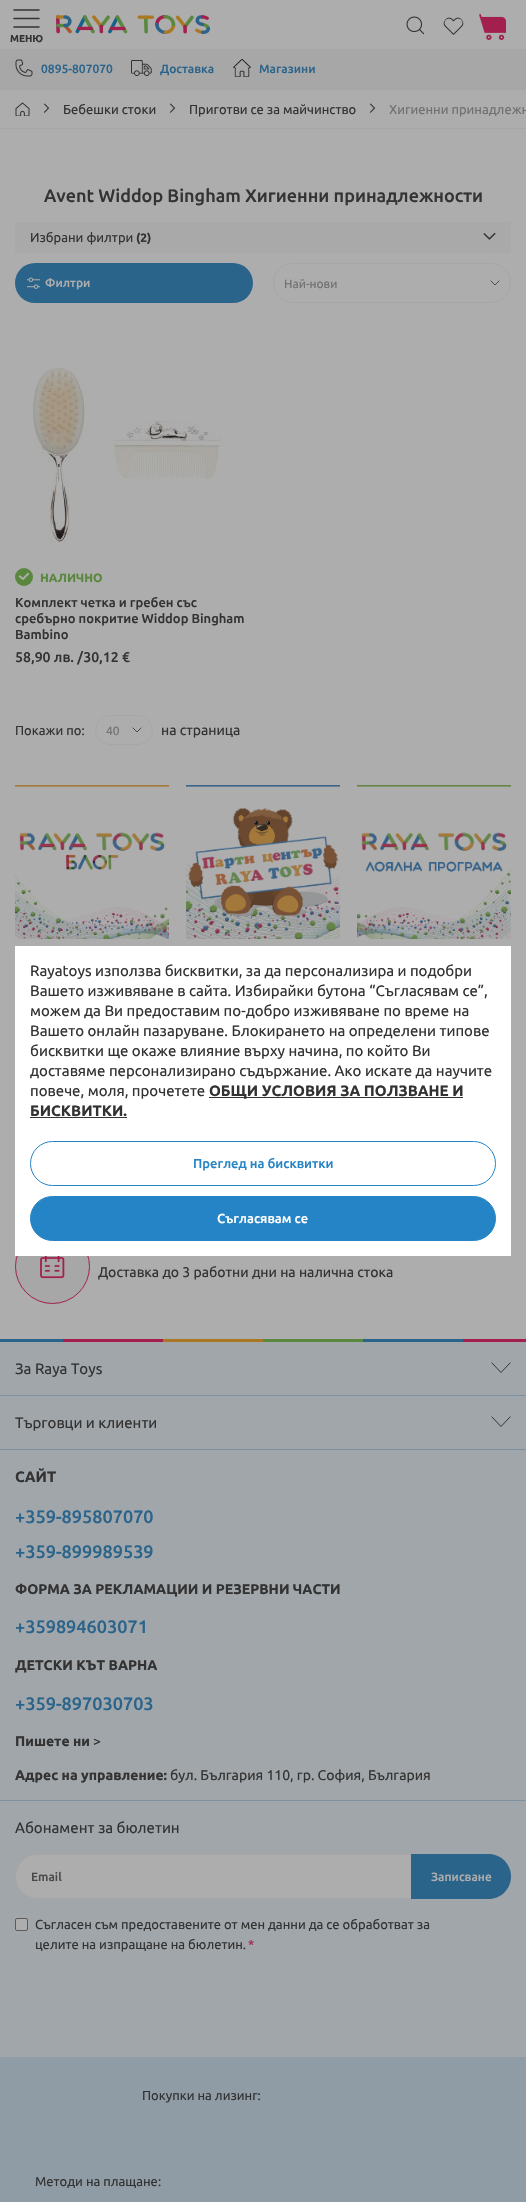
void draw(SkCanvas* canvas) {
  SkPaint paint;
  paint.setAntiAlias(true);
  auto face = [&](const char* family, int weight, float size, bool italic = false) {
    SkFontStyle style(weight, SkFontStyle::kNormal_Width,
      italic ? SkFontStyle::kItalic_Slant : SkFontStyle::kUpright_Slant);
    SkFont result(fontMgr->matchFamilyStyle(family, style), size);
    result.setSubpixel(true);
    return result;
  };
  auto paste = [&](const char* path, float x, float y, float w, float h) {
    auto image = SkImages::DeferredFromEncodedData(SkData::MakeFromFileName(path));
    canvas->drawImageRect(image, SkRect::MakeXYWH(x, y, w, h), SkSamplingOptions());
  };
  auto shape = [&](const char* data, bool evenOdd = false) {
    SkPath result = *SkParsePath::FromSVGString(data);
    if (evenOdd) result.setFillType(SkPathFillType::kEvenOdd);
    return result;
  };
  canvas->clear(0xffadadad);
  paste("img/1.png", 56, 15, 154, 19);
  paste("img/2.png", 406, 16, 19, 19);
  paste("img/3.png", 443, 17, 21, 18);
  paste("img/4.png", 479, 14, 27, 26);
  paint.setStroke(true);
  paint.setStrokeWidth(1.5f);
  paint.setStrokeCap(SkPaint::kRound_Cap);
  paint.setColor(0xff333333);
  canvas->drawPath(shape("M14 10H39M14 18.5H39M14 27H39"), paint);
  paint.setStroke(false);
  paint.setColor(0xffa7a7a7);
  canvas->drawRect(SkRect::MakeXYWH(0, 49, 526, 40), paint);
  paste("img/5.png", 15, 59, 18, 18);
  paste("img/6.png", 131, 60, 21, 16);
  paste("img/7.png", 233, 59, 18, 18);
  paint.setColor(0xffa6a6a6);
  canvas->drawRect(SkRect::MakeXYWH(0, 89, 526, 1), paint);
  canvas->drawRect(SkRect::MakeXYWH(0, 128, 526, 1), paint);
  paste("img/8.png", 15, 102, 15, 14);
  paste("img/9.png", 43, 103, 7, 10);
  paste("img/9.png", 169, 103, 7, 10);
  paste("img/9.png", 369, 103, 7, 10);
  paint.setColor(0xffa9a9a9);
  canvas->drawRect(SkRect::MakeXYWH(15, 222, 496, 31), paint);
  paste("img/10.png", 483, 232, 13, 8);
  paint.setColor(0xff2b648b);
  canvas->drawRoundRect(SkRect::MakeXYWH(15, 263, 238, 40), 20, 20, paint);
  paste("img/11.png", 27, 277, 13, 12);
  paint.setStroke(true);
  paint.setStrokeWidth(0.8f);
  paint.setStrokeCap(SkPaint::kSquare_Cap);
  paint.setColor(0xff333333);
  canvas->drawPath(shape("M499 281L495 285L491 281"), paint);
  paint.setStrokeWidth(1);
  paint.setStrokeCap(SkPaint::kButt_Cap);
  paint.setColor(0xffa6a6a6);
  canvas->drawRoundRect(SkRect::MakeXYWH(273.5f, 263.5f, 237, 39), 19.5f, 19.5f, paint);
  paste("img/12.png", 31, 367, 192, 176);
  paint.setStroke(false);
  paint.setColor(0xff59873d);
  canvas->drawCircle(24, 577, 9, paint);
  paint.setStroke(true);
  paint.setStrokeWidth(2);
  paint.setStrokeCap(SkPaint::kSquare_Cap);
  paint.setColor(0xffadadad);
  canvas->drawPath(shape("M20 576.5L23 579L28 574"), paint);
  paint.setStrokeWidth(0.8f);
  paint.setColor(0xff333333);
  canvas->drawPath(shape("M141 728L137 732L133 728"), paint);
  paint.setStrokeWidth(1);
  paint.setStrokeCap(SkPaint::kButt_Cap);
  paint.setColor(0xffa6a6a6);
  canvas->drawRoundRect(SkRect::MakeXYWH(95.5f, 715.5f, 57, 29), 14.5f, 14.5f, paint);
  paste("img/13.png", 15, 785, 154, 154);
  paste("img/14.png", 186, 785, 154, 154);
  paste("img/15.png", 357, 785, 154, 154);
  paint.setStroke(false);
  paint.setColor(0xffa7a7a7);
  canvas->drawCircle(52.5f, 1266.5f, 37.5f, paint);
  paste("img/16.png", 40, 1256, 25, 23);
  paint.setStroke(true);
  paint.setColor(0xffa31f4d);
  canvas->drawCircle(52.5f, 1266.5f, 37, paint);
  paint.setStroke(false);
  paint.setColor(0xffa1a6aa);
  canvas->drawRect(SkRect::MakeXYWH(0, 1342, 526, 715), paint);
  paste("img/17.png", 0, 1339, 526, 3);
  paint.setColor(0xff7d92a1);
  canvas->drawRect(SkRect::MakeXYWH(0, 1395, 526, 1), paint);
  paint.setStroke(true);
  paint.setStrokeCap(SkPaint::kSquare_Cap);
  paint.setColor(0xff333333);
  canvas->drawPath(shape("M510 1363L501 1372.5L492 1363"), paint);
  paint.setStroke(false);
  paint.setColor(0xff7d92a1);
  canvas->drawRect(SkRect::MakeXYWH(0, 1449, 526, 1), paint);
  paint.setStroke(true);
  paint.setColor(0xff333333);
  canvas->drawPath(shape("M510 1417L501 1426.5L492 1417"), paint);
  paint.setStroke(false);
  paint.setColor(0xff7d92a1);
  canvas->drawRect(SkRect::MakeXYWH(0, 1800, 526, 1), paint);
  paint.setColor(0xffadadad);
  canvas->drawRoundRect(SkRect::MakeXYWH(15.5f, 1854.5f, 495, 44), 22, 22, paint);
  paint.setStroke(true);
  paint.setStrokeCap(SkPaint::kButt_Cap);
  paint.setColor(0xffa6a6a6);
  canvas->drawRoundRect(SkRect::MakeXYWH(15.5f, 1854.5f, 495, 44), 22, 22, paint);
  paint.setStroke(false);
  paint.setColor(0xff2b648b);
  canvas->drawPath(shape("M411 1854H488.5C501 1854 511 1864 511 1876.5C511 1889 501 1899 488.5 1899H411Z"), paint);
  paint.setColor(0xffadadad);
  canvas->drawRoundRect(SkRect::MakeXYWH(15.5f, 1918.5f, 12, 12), 1.5f, 1.5f, paint);
  paint.setStroke(true);
  paint.setColor(0xff5b5b5b);
  canvas->drawRoundRect(SkRect::MakeXYWH(15.5f, 1918.5f, 12, 12), 1.5f, 1.5f, paint);
  paint.setStroke(false);
  {
    const struct { float x, y, w, h; SkColor color; } items[] = {
      {0, 2057, 526, 145, 0xff8f9ca6},
      {15, 946, 496, 310, 0xffffffff},
      {209, 1097, 254, 1, 0xff333333},
      {30, 1117, 97, 1, 0xff333333},
    };
    for (auto [x, y, w, h, color] : items) {
      paint.setColor(color);
      canvas->drawRect(SkRect::MakeXYWH(x, y, w, h), paint);
    }
  }
  paint.setStroke(true);
  paint.setColor(0xff2584c5);
  canvas->drawRoundRect(SkRect::MakeXYWH(30.5f, 1141.5f, 465, 44), 22, 22, paint);
  paint.setStroke(false);
  canvas->drawRoundRect(SkRect::MakeXYWH(30.5f, 1196.5f, 465, 44), 22, 22, paint);
  paint.setStroke(true);
  canvas->drawRoundRect(SkRect::MakeXYWH(30.5f, 1196.5f, 465, 44), 22, 22, paint);
  auto f0 = face("Ubuntu", 700, 10);
  paint.setStroke(false);
  paint.setColor(0xff333333);
  canvas->drawString("МЕНЮ", 10, 42, f0, paint);
  auto f1 = face("Ubuntu", 500, 12);
  paint.setColor(0xff2b648b);
  {
    const struct { const char* s; float x, y; } items[] = {
      {"0895-807070", 41, 73},
      {"Доставка", 160, 73},
      {"Магазини", 259, 73},
    };
    for (auto [s, x, y] : items) {
      canvas->drawString(s, x, y, f1, paint);
    }
  }
  auto f2 = face("Ubuntu", 400, 13);
  paint.setColor(0xff333333);
  canvas->drawString("Бебешки стоки", 63, 114, f2, paint);
  canvas->drawString("Приготви се за майчинство", 189, 114, f2, paint);
  paint.setColor(0xff707070);
  canvas->drawString("Хигиенни принадлежн", 389, 114, f2, paint);
  auto f3 = face("Ubuntu", 500, 18);
  paint.setColor(0xff333333);
  canvas->drawString("Avent Widdop Bingham Хигиенни принадлежности", 44, 202, f3, paint);
  canvas->drawString("Избрани филтри", 30, 242, f2, paint);
  auto f4 = face("Ubuntu", 700, 12);
  canvas->drawString("(2)", 136, 242, f4, paint);
  paint.setColor(0xffadadad);
  canvas->drawString("Филтри", 45, 287, f1, paint);
  auto f5 = face("Ubuntu", 400, 12);
  paint.setColor(0xff707070);
  canvas->drawString("Най-нови", 284, 288, f5, paint);
  paint.setColor(0xff59873d);
  canvas->drawString("НАЛИЧНО", 40, 582, f4, paint);
  auto f6 = face("Ubuntu", 500, 13);
  paint.setColor(0xff333333);
  {
    const struct { const char* s; float x, y; } items[] = {
      {"Комплект четка и гребен със", 15, 607},
      {"сребърно покритие Widdop Bingham", 15, 623},
      {"Bambino", 15, 639},
    };
    for (auto [s, x, y] : items) {
      canvas->drawString(s, x, y, f6, paint);
    }
  }
  auto f7 = face("Ubuntu", 500, 14);
  canvas->drawString("58,90 лв. /30,12 €", 15, 662, f7, paint);
  canvas->drawString("Покажи по:", 15, 735, f2, paint);
  paint.setColor(0xff707070);
  canvas->drawString("40", 106, 735, f5, paint);
  auto f8 = face("Ubuntu", 400, 14);
  paint.setColor(0xff333333);
  canvas->drawString("на страница", 161, 735, f8, paint);
  canvas->drawString("Доставка до 3 работни дни на налична стока", 98, 1277, f8, paint);
  auto f9 = face("Ubuntu", 400, 15);
  canvas->drawString("За Raya Toys", 15, 1374, f9, paint);
  canvas->drawString("Търговци и клиенти", 15, 1428, f9, paint);
  auto f10 = face("Ubuntu", 700, 15);
  canvas->drawString("САЙТ", 15, 1482, f10, paint);
  paint.setColor(0xff2b648b);
  canvas->drawString("+359-895807070", 15, 1523, f3, paint);
  canvas->drawString("+359-899989539", 15, 1558, f3, paint);
  auto f11 = face("Ubuntu", 700, 14);
  paint.setColor(0xff333333);
  canvas->drawString("ФОРМА ЗА РЕКЛАМАЦИИ И РЕЗЕРВНИ ЧАСТИ", 15, 1594, f11, paint);
  paint.setColor(0xff2b648b);
  canvas->drawString("+359894603071", 15, 1633, f3, paint);
  paint.setColor(0xff333333);
  canvas->drawString("ДЕТСКИ КЪТ ВАРНА", 15, 1670, f11, paint);
  paint.setColor(0xff2b648b);
  canvas->drawString("+359-897030703", 15, 1710, f3, paint);
  paint.setColor(0xff333333);
  canvas->drawString("Пишете ни", 15, 1746, f11, paint);
  canvas->drawString(">", 93, 1746, f8, paint);
  canvas->drawString("Адрес на управление:", 15, 1780, f11, paint);
  canvas->drawString("бул. България 110, гр. София, България", 170, 1780, f8, paint);
  canvas->drawString("Абонамент за бюлетин", 15, 1833, f9, paint);
  paint.setColor(0xff494949);
  canvas->drawString("Email", 31, 1881, f1, paint);
  paint.setColor(0xffadadad);
  canvas->drawString("Записване", 431, 1881, f1, paint);
  paint.setColor(0xff333333);
  canvas->drawString("Съгласен съм предоставените от мен данни да се обработват за", 35, 1929, f2, paint);
  canvas->drawString("целите на изпращане на бюлетин.", 35, 1949, f2, paint);
  paint.setColor(0xffa31f4d);
  canvas->drawString("*", 248, 1949, f2, paint);
  paint.setColor(0xff333333);
  canvas->drawString("Покупки на лизинг:", 142, 2100, f2, paint);
  canvas->drawString("Методи на плащане:", 35, 2186, f2, paint);
  {
    const struct { const char* s; float x, y; } items[] = {
      {"Rayatoys използва бисквитки, за да персонализира и подобри", 30, 976},
      {"Вашето изживяване в сайта. Избирайки бутона “Съгласявам се”,", 30, 996},
      {"можем да Ви предоставим по-добро изживяване по време на", 30, 1016},
      {"Вашето онлайн пазаруване. Блокирането на определени типове", 30, 1036},
      {"бисквитки ще окаже влияние върху начина, по който Ви", 30, 1056},
      {"доставяме персонализирано съдържание. Ако искате да научите", 30, 1076},
      {"повече, моля, прочетете", 30, 1096},
    };
    for (auto [s, x, y] : items) {
      canvas->drawString(s, x, y, f9, paint);
    }
  }
  canvas->drawString("ОБЩИ УСЛОВИЯ ЗА ПОЛЗВАНЕ И", 209, 1096, f10, paint);
  canvas->drawString("БИСКВИТКИ.", 30, 1116, f10, paint);
  paint.setColor(0xff2584c5);
  canvas->drawString("Преглед на бисквитки", 193, 1168, f6, paint);
  paint.setColor(0xffffffff);
  canvas->drawString("Съгласявам се", 217, 1223, f6, paint);
}
